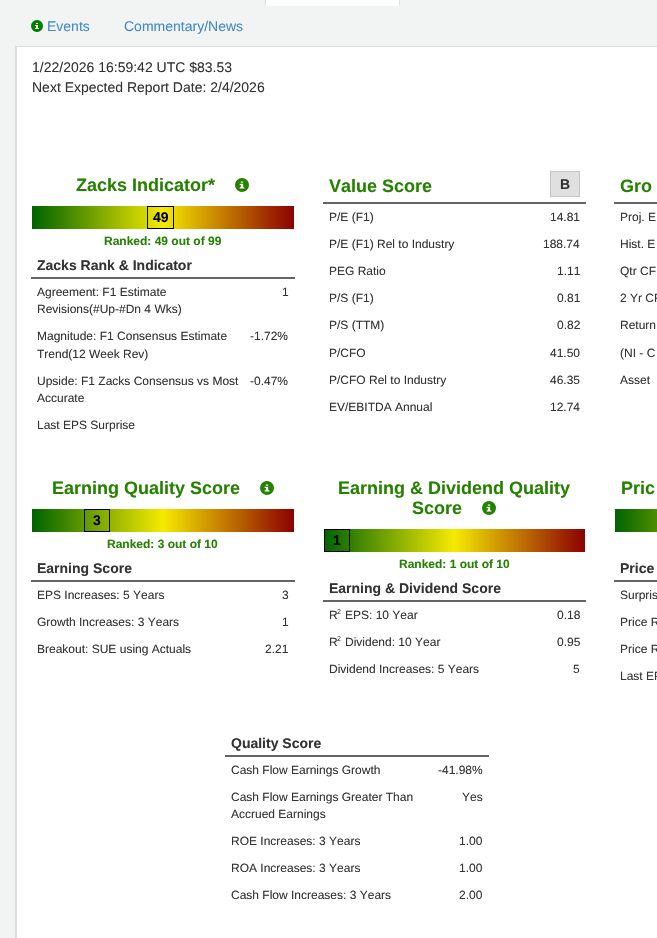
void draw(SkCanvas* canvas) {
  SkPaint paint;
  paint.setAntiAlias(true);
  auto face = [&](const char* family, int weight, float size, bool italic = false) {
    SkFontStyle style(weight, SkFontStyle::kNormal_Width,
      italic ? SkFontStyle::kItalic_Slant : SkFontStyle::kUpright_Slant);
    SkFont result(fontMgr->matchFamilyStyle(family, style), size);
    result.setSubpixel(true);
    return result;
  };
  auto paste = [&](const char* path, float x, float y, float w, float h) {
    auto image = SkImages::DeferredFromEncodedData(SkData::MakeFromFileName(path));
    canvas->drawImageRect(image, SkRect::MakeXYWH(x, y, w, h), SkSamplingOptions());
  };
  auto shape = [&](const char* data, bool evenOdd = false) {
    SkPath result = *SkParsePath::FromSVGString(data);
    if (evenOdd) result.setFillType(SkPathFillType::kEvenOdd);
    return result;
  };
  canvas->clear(0xfff2f3f3);
  paint.setColor(0xffdddddd);
  canvas->drawRect(SkRect::MakeXYWH(15, 46, 642, 1), paint);
  paint.setColor(0xffffffff);
  canvas->drawRect(SkRect::MakeXYWH(265, 0, 135, 6), paint);
  paint.setColor(0xffdddddd);
  canvas->drawPath(shape("M400 6V-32C400-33 400-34 399-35L398-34C400-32 399 0 399 5Z"), paint);
  canvas->drawPath(shape("M265 6L266 5C266 0 265-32 267-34L266-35L265-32Z"), paint);
  paste("img/1.png", 31, 20, 12, 12);
  paint.setColor(0xffffffff);
  canvas->drawRect(SkRect::MakeXYWH(17, 47, 640, 891), paint);
  paint.setColor(0xffdddddd);
  canvas->drawRect(SkRect::MakeXYWH(15, 47, 2, 891), paint);
  paste("img/2.png", 235, 178, 14, 14);
  {
    const SkColor colors[] = {0xff006400, 0xff307e00, 0xff619900, 0xff93b400, 0xffc5cf00, 0xfff6ea00, 0xffdfb900, 0xffca8a00, 0xffb55c00, 0xffa02d00, 0xff8c0200};
    const float stops[] = {0, 0.1f, 0.2f, 0.3f, 0.4f, 0.5f, 0.6f, 0.7f, 0.8f, 0.9f, 1};
    const SkPoint ends[] = {{32, 218}, {294, 218}};
    paint.setShader(SkGradientShader::MakeLinear(ends, colors, stops, 11, SkTileMode::kClamp));
    paint.setAlpha(255);
  }
  canvas->drawRect(SkRect::MakeXYWH(32, 206, 262, 23), paint);
  paint.setStroke(true);
  paint.setStrokeWidth(1);
  paint.setShader(nullptr);
  paint.setColor(0xff000000);
  canvas->drawRect(SkRect::MakeXYWH(147.5f, 206.5f, 26, 22), paint);
  paint.setStroke(false);
  paint.setColor(0xff646464);
  canvas->drawRect(SkRect::MakeXYWH(31, 277, 264, 2), paint);
  canvas->drawRect(SkRect::MakeXYWH(323, 202, 263, 2), paint);
  paint.setColor(0xffe0e0e0);
  canvas->drawRect(SkRect::MakeXYWH(550.5f, 171.5f, 29, 25), paint);
  paint.setStroke(true);
  paint.setColor(0xffc4c4c4);
  canvas->drawRect(SkRect::MakeXYWH(550.5f, 171.5f, 29, 25), paint);
  paint.setStroke(false);
  paint.setColor(0xff646464);
  canvas->drawRect(SkRect::MakeXYWH(614, 202, 43, 2), paint);
  paste("img/2.png", 260, 481, 14, 14);
  {
    const SkColor colors[] = {0xff006400, 0xff307e00, 0xff619900, 0xff93b400, 0xffc5cf00, 0xfff6ea00, 0xffdfb900, 0xffca8a00, 0xffb55c00, 0xffa02d00, 0xff8c0200};
    const float stops[] = {0, 0.1f, 0.2f, 0.3f, 0.4f, 0.5f, 0.6f, 0.7f, 0.8f, 0.9f, 1};
    const SkPoint ends[] = {{32, 521}, {294, 521}};
    paint.setShader(SkGradientShader::MakeLinear(ends, colors, stops, 11, SkTileMode::kClamp));
    paint.setAlpha(255);
  }
  canvas->drawRect(SkRect::MakeXYWH(32, 509, 262, 23), paint);
  paint.setStroke(true);
  paint.setShader(nullptr);
  paint.setColor(0xff000000);
  canvas->drawRect(SkRect::MakeXYWH(84.5f, 509.5f, 25, 22), paint);
  paint.setStroke(false);
  paint.setColor(0xff646464);
  canvas->drawRect(SkRect::MakeXYWH(31, 580, 264, 2), paint);
  paste("img/2.png", 482, 501, 14, 14);
  {
    const SkColor colors[] = {0xff006400, 0xff307e00, 0xff619900, 0xff93b400, 0xffc5cf00, 0xfff6ea00, 0xffdfb900, 0xffca8a00, 0xffb55c00, 0xffa02d00, 0xff8c0200};
    const float stops[] = {0, 0.1f, 0.2f, 0.3f, 0.4f, 0.5f, 0.6f, 0.7f, 0.8f, 0.9f, 1};
    const SkPoint ends[] = {{324, 541}, {585, 541}};
    paint.setShader(SkGradientShader::MakeLinear(ends, colors, stops, 11, SkTileMode::kClamp));
    paint.setAlpha(255);
  }
  canvas->drawRect(SkRect::MakeXYWH(325, 529, 260, 23), paint);
  paint.setStroke(true);
  paint.setShader(nullptr);
  paint.setColor(0xff000000);
  canvas->drawRect(SkRect::MakeXYWH(324.5f, 529.5f, 25, 22), paint);
  paint.setStroke(false);
  paint.setColor(0xff646464);
  canvas->drawRect(SkRect::MakeXYWH(323, 600, 263, 2), paint);
  {
    const SkColor colors[] = {0xff006400, 0xff307e00, 0xff619900, 0xff93b400, 0xffc5cf00, 0xfff6ea00, 0xffdfb900, 0xffca8a00, 0xffb55c00, 0xffa02d00, 0xff8c0200};
    const float stops[] = {0, 0.1f, 0.2f, 0.3f, 0.4f, 0.5f, 0.6f, 0.7f, 0.8f, 0.9f, 1};
    const SkPoint ends[] = {{615, 521}, {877, 521}};
    paint.setShader(SkGradientShader::MakeLinear(ends, colors, stops, 11, SkTileMode::kClamp));
    paint.setAlpha(255);
  }
  canvas->drawRect(SkRect::MakeXYWH(615, 509, 42, 23), paint);
  paint.setShader(nullptr);
  paint.setColor(0xff646464);
  canvas->drawRect(SkRect::MakeXYWH(614, 580, 43, 2), paint);
  canvas->drawRect(SkRect::MakeXYWH(225, 755, 264, 2), paint);
  auto f0 = face("Liberation Sans", 400, 14);
  paint.setColor(0xff428bca);
  canvas->drawString("Events", 47, 31, f0, paint);
  canvas->drawString("Commentary/News", 124, 31, f0, paint);
  paint.setColor(0xff333333);
  canvas->drawString("1/22/2026 16:59:42 UTC $83.53", 32, 72, f0, paint);
  canvas->drawString("Next Expected Report Date: 2/4/2026", 32, 92, f0, paint);
  auto f1 = face("Liberation Sans", 700, 18);
  paint.setColor(0xff258200);
  canvas->drawString("Zacks Indicator*", 76, 191, f1, paint);
  auto f2 = face("Liberation Sans", 700, 14);
  paint.setColor(0xff000000);
  canvas->drawString("49", 153, 222, f2, paint);
  auto f3 = face("Liberation Sans", 700, 12);
  paint.setColor(0xff258200);
  canvas->drawString("Ranked: 49 out of 99", 104, 245, f3, paint);
  paint.setColor(0xff333333);
  canvas->drawString("Zacks Rank & Indicator", 37, 270, f2, paint);
  auto f4 = face("Liberation Sans", 400, 12);
  {
    const struct { const char* s; float x, y; } items[] = {
      {"Agreement: F1 Estimate", 37, 296},
      {"Revisions(#Up-#Dn 4 Wks)", 37, 313},
      {"1", 282, 296},
      {"Magnitude: F1 Consensus Estimate", 37, 340},
      {"Trend(12 Week Rev)", 37, 358},
      {"-1.72%", 250, 340},
      {"Upside: F1 Zacks Consensus vs Most", 37, 385},
      {"Accurate", 37, 402},
      {"-0.47%", 250, 385},
      {"Last EPS Surprise", 37, 429},
    };
    for (auto [s, x, y] : items) {
      canvas->drawString(s, x, y, f4, paint);
    }
  }
  paint.setColor(0xff258200);
  canvas->drawString("Value Score", 329, 192, f1, paint);
  paint.setColor(0xff333333);
  canvas->drawString("B", 560, 189, f2, paint);
  {
    const struct { const char* s; float x, y; } items[] = {
      {"P/E (F1)", 329, 221},
      {"14.81", 550, 221},
      {"P/E (F1) Rel to Industry", 329, 248},
      {"188.74", 543, 248},
      {"PEG Ratio", 329, 275},
      {"1.11", 557, 275},
      {"P/S (F1)", 329, 302},
      {"0.81", 557, 302},
      {"P/S (TTM)", 329, 329},
      {"0.82", 557, 329},
      {"P/CFO", 329, 357},
      {"41.50", 550, 357},
      {"P/CFO Rel to Industry", 329, 384},
      {"46.35", 550, 384},
      {"EV/EBITDA Annual", 329, 411},
      {"12.74", 550, 411},
    };
    for (auto [s, x, y] : items) {
      canvas->drawString(s, x, y, f4, paint);
    }
  }
  paint.setColor(0xff258200);
  canvas->drawString("Gro", 620, 192, f1, paint);
  paint.setColor(0xff333333);
  {
    const struct { const char* s; float x, y; } items[] = {
      {"Proj. E", 620, 221},
      {"Hist. E", 620, 248},
      {"Qtr CF", 620, 275},
      {"2 Yr CF", 620, 302},
      {"Return", 620, 329},
      {"(NI - C", 620, 357},
      {"Asset", 620, 384},
    };
    for (auto [s, x, y] : items) {
      canvas->drawString(s, x, y, f4, paint);
    }
  }
  paint.setColor(0xff258200);
  canvas->drawString("Earning Quality Score", 52, 494, f1, paint);
  paint.setColor(0xff000000);
  canvas->drawString("3", 93, 525, f2, paint);
  paint.setColor(0xff258200);
  canvas->drawString("Ranked: 3 out of 10", 107, 548, f3, paint);
  paint.setColor(0xff333333);
  canvas->drawString("Earning Score", 37, 573, f2, paint);
  {
    const struct { const char* s; float x, y; } items[] = {
      {"EPS Increases: 5 Years", 37, 599},
      {"3", 282, 599},
      {"Growth Increases: 3 Years", 37, 626},
      {"1", 282, 626},
      {"Breakout: SUE using Actuals", 37, 653},
      {"2.21", 265, 653},
    };
    for (auto [s, x, y] : items) {
      canvas->drawString(s, x, y, f4, paint);
    }
  }
  paint.setColor(0xff258200);
  canvas->drawString("Earning & Dividend Quality", 338, 494, f1, paint);
  canvas->drawString("Score", 412, 514, f1, paint);
  paint.setColor(0xff000000);
  canvas->drawString("1", 333, 545, f2, paint);
  paint.setColor(0xff258200);
  canvas->drawString("Ranked: 1 out of 10", 399, 568, f3, paint);
  paint.setColor(0xff333333);
  canvas->drawString("Earning & Dividend Score", 329, 593, f2, paint);
  canvas->drawString("R", 329, 619, f4, paint);
  auto f5 = face("Liberation Sans", 400, 7);
  canvas->drawString("2", 337, 614, f5, paint);
  {
    const struct { const char* s; float x, y; } items[] = {
      {"EPS: 10 Year", 345, 619},
      {"0.18", 557, 619},
      {"R", 329, 646},
    };
    for (auto [s, x, y] : items) {
      canvas->drawString(s, x, y, f4, paint);
    }
  }
  canvas->drawString("2", 337, 641, f5, paint);
  {
    const struct { const char* s; float x, y; } items[] = {
      {"Dividend: 10 Year", 345, 646},
      {"0.95", 557, 646},
      {"Dividend Increases: 5 Years", 329, 673},
      {"5", 573, 673},
    };
    for (auto [s, x, y] : items) {
      canvas->drawString(s, x, y, f4, paint);
    }
  }
  paint.setColor(0xff258200);
  canvas->drawString("Pric", 621, 494, f1, paint);
  paint.setColor(0xff333333);
  canvas->drawString("Price", 620, 573, f2, paint);
  {
    const struct { const char* s; float x, y; } items[] = {
      {"Surpris", 620, 599},
      {"Price R", 620, 626},
      {"Price R", 620, 653},
      {"Last EP", 620, 680},
    };
    for (auto [s, x, y] : items) {
      canvas->drawString(s, x, y, f4, paint);
    }
  }
  canvas->drawString("Quality Score", 231, 748, f2, paint);
  {
    const struct { const char* s; float x, y; } items[] = {
      {"Cash Flow Earnings Growth", 231, 774},
      {"-41.98%", 438, 774},
      {"Cash Flow Earnings Greater Than", 231, 801},
      {"Accrued Earnings", 231, 818},
      {"Yes", 462, 801},
      {"ROE Increases: 3 Years", 231, 845},
      {"1.00", 459, 845},
      {"ROA Increases: 3 Years", 231, 872},
      {"1.00", 459, 872},
      {"Cash Flow Increases: 3 Years", 231, 899},
      {"2.00", 459, 899},
    };
    for (auto [s, x, y] : items) {
      canvas->drawString(s, x, y, f4, paint);
    }
  }
}
